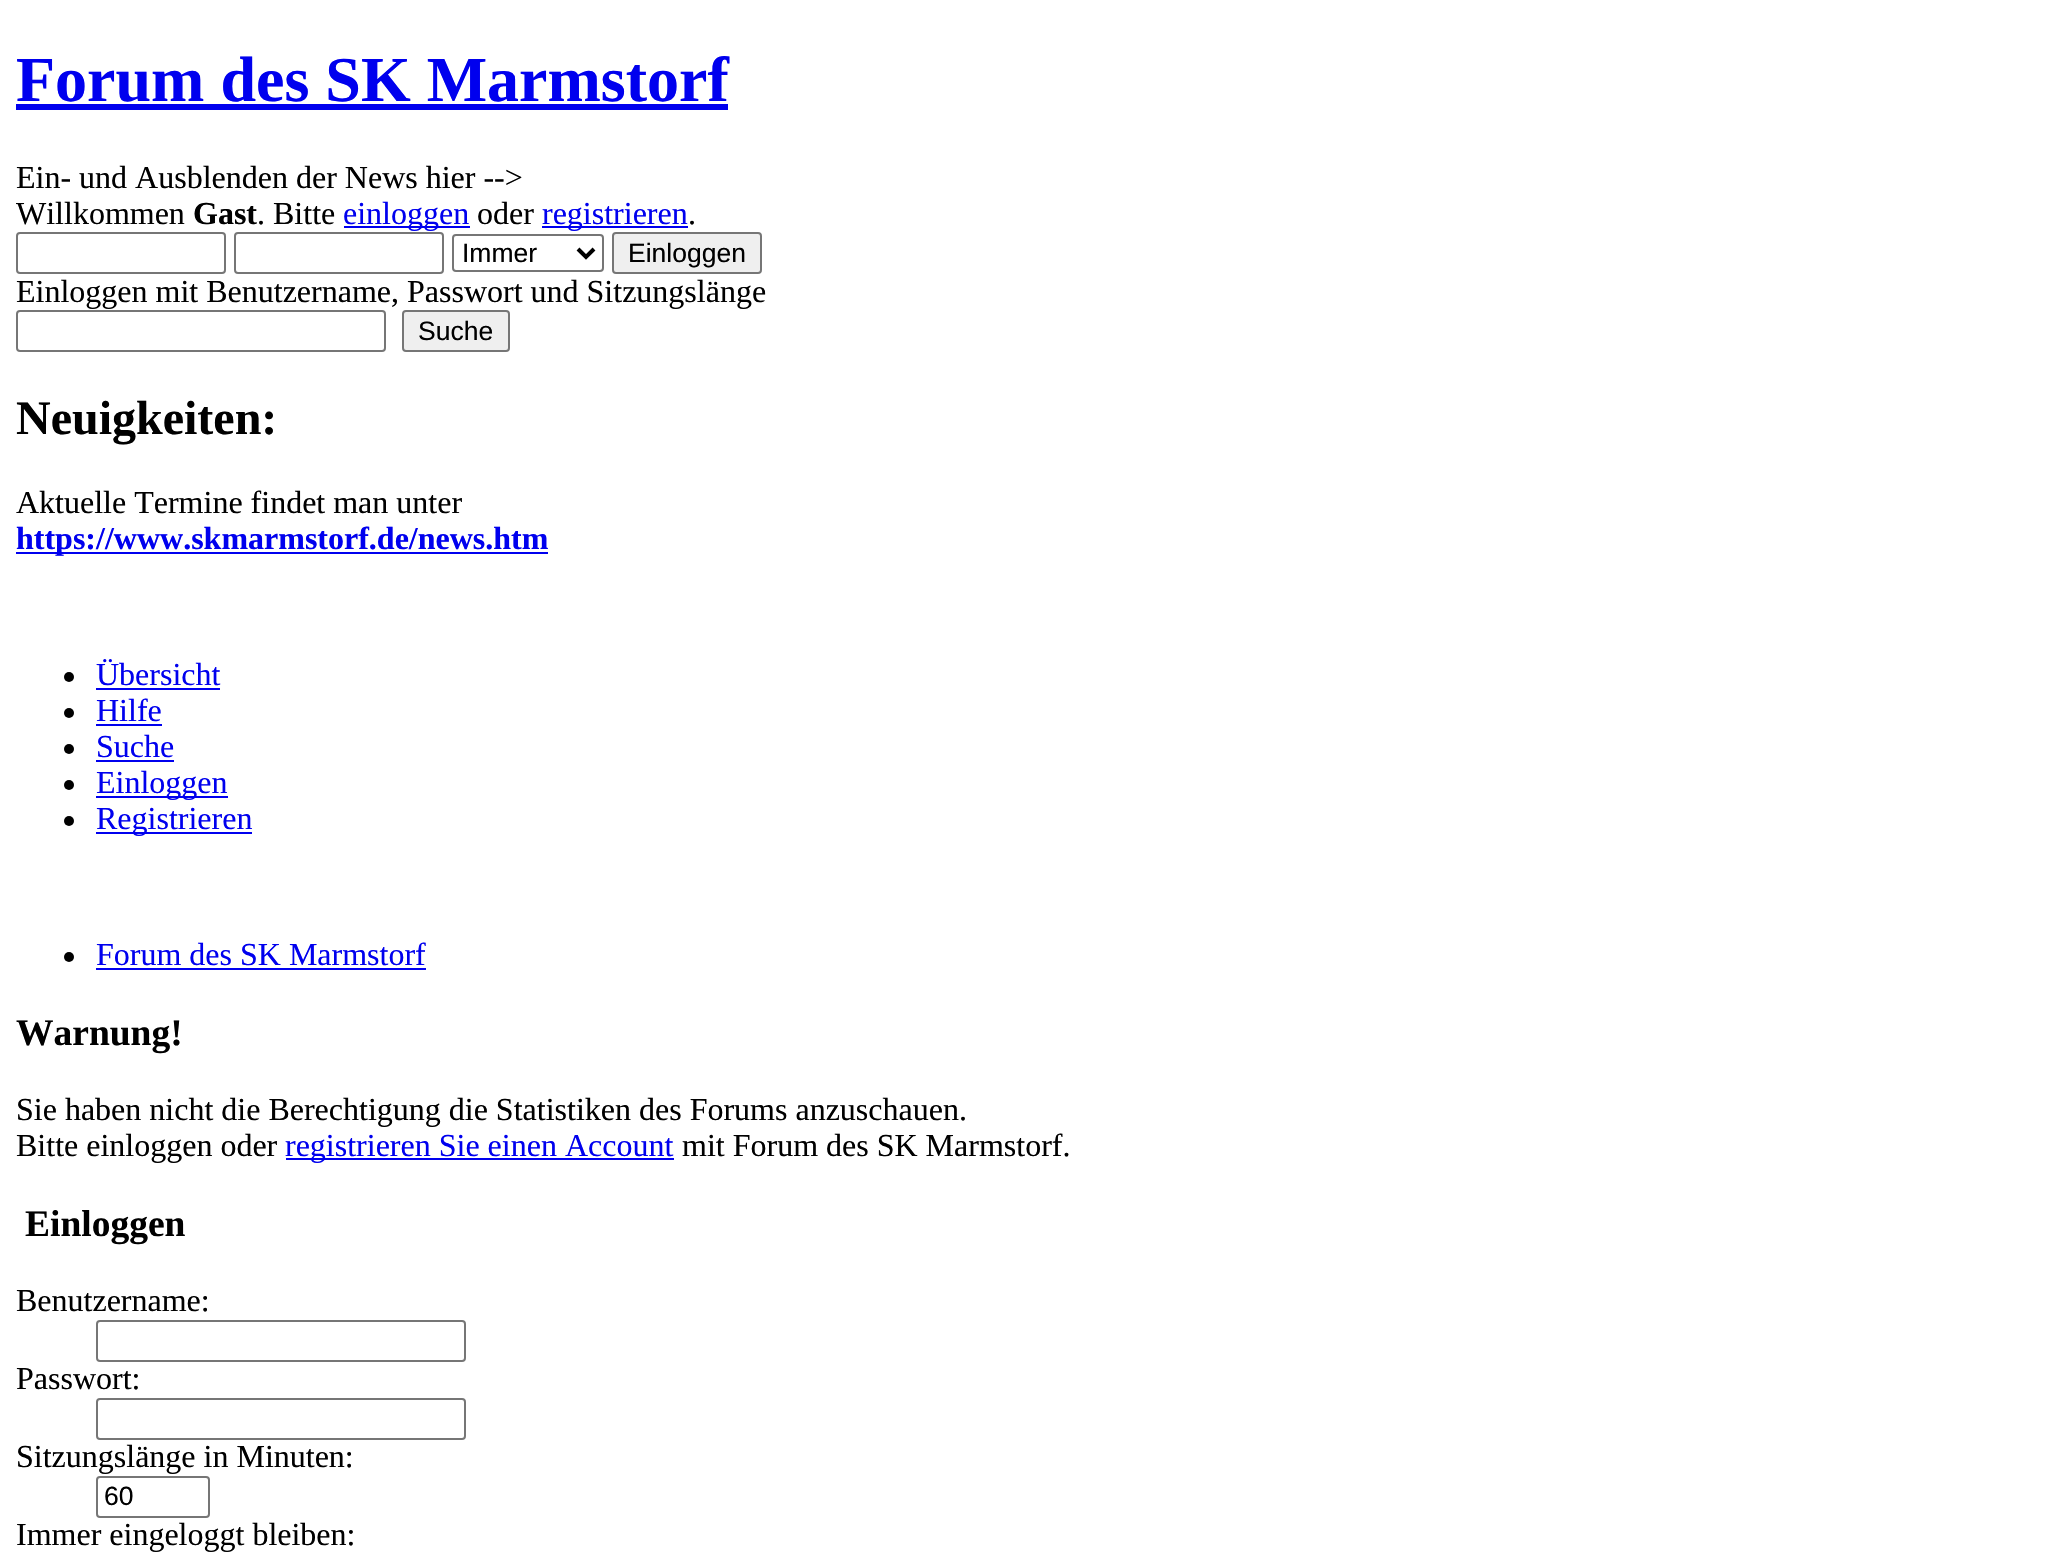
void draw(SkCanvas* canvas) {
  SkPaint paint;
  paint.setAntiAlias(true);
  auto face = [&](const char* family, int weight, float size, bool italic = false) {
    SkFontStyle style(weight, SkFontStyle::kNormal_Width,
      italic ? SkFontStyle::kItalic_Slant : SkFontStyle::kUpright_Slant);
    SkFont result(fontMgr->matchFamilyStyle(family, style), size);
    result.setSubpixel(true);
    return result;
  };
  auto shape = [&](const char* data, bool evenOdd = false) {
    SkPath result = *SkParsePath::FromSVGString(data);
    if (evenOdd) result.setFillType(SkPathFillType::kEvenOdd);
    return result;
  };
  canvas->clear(0xffffffff);
  {
    const struct { float x, y, w, h; SkColor color; } items[] = {
      {16, 104, 712, 6, 0xff0000ee},
      {344, 226, 126, 2, 0xff0000ee},
      {542, 226, 146, 2, 0xff0000ee},
    };
    for (auto [x, y, w, h, color] : items) {
      paint.setColor(color);
      canvas->drawRect(SkRect::MakeXYWH(x, y, w, h), paint);
    }
  }
  paint.setStroke(true);
  paint.setStrokeWidth(2);
  paint.setColor(0xff767676);
  canvas->drawRoundRect(SkRect::MakeXYWH(17, 233, 208, 40), 3, 3, paint);
  canvas->drawRoundRect(SkRect::MakeXYWH(235, 233, 208, 40), 3, 3, paint);
  canvas->drawRoundRect(SkRect::MakeXYWH(453, 235, 150, 36), 3, 3, paint);
  paint.setStrokeWidth(4);
  paint.setColor(0xff000000);
  canvas->drawPath(shape("M578 249L586 257L594 249"), paint);
  paint.setStroke(false);
  paint.setColor(0xffefefef);
  canvas->drawRoundRect(SkRect::MakeXYWH(613, 233, 148, 40), 3, 3, paint);
  paint.setStroke(true);
  paint.setStrokeWidth(2);
  paint.setColor(0xff767676);
  canvas->drawRoundRect(SkRect::MakeXYWH(613, 233, 148, 40), 3, 3, paint);
  canvas->drawRoundRect(SkRect::MakeXYWH(17, 311, 368, 40), 3, 3, paint);
  paint.setStroke(false);
  paint.setColor(0xffefefef);
  canvas->drawRoundRect(SkRect::MakeXYWH(403, 311, 106, 40), 3, 3, paint);
  paint.setStroke(true);
  paint.setColor(0xff767676);
  canvas->drawRoundRect(SkRect::MakeXYWH(403, 311, 106, 40), 3, 3, paint);
  paint.setStroke(false);
  paint.setColor(0xff0000ee);
  canvas->drawRect(SkRect::MakeXYWH(16, 552, 532, 2), paint);
  paint.setColor(0xff000000);
  canvas->drawCircle(69, 677, 5, paint);
  paint.setColor(0xff0000ee);
  canvas->drawRect(SkRect::MakeXYWH(96, 688, 124, 2), paint);
  paint.setColor(0xff000000);
  canvas->drawCircle(69, 713, 5, paint);
  paint.setColor(0xff0000ee);
  canvas->drawRect(SkRect::MakeXYWH(96, 724, 66, 2), paint);
  paint.setColor(0xff000000);
  canvas->drawCircle(69, 749, 5, paint);
  paint.setColor(0xff0000ee);
  canvas->drawRect(SkRect::MakeXYWH(96, 760, 78, 2), paint);
  paint.setColor(0xff000000);
  canvas->drawCircle(69, 785, 5, paint);
  paint.setColor(0xff0000ee);
  canvas->drawRect(SkRect::MakeXYWH(96, 796, 132, 2), paint);
  paint.setColor(0xff000000);
  canvas->drawCircle(69, 821, 5, paint);
  paint.setColor(0xff0000ee);
  canvas->drawRect(SkRect::MakeXYWH(96, 832, 156, 2), paint);
  paint.setColor(0xff000000);
  canvas->drawCircle(69, 957, 5, paint);
  paint.setColor(0xff0000ee);
  canvas->drawRect(SkRect::MakeXYWH(96, 968, 330, 2), paint);
  canvas->drawRect(SkRect::MakeXYWH(286, 1158, 388, 2), paint);
  paint.setStroke(true);
  paint.setColor(0xff767676);
  canvas->drawRoundRect(SkRect::MakeXYWH(97, 1321, 368, 40), 3, 3, paint);
  canvas->drawRoundRect(SkRect::MakeXYWH(97, 1399, 368, 40), 3, 3, paint);
  canvas->drawRoundRect(SkRect::MakeXYWH(97, 1477, 112, 40), 3, 3, paint);
  auto f0 = face("Liberation Serif", 700, 64);
  paint.setStroke(false);
  paint.setColor(0xff0000ee);
  canvas->drawString("Forum des SK Marmstorf", 16, 101, f0, paint);
  auto f1 = face("Liberation Serif", 400, 32);
  paint.setColor(0xff000000);
  canvas->drawString("Ein- und Ausblenden der News hier -->", 16, 188, f1, paint);
  canvas->drawString("Willkommen", 16, 224, f1, paint);
  auto f2 = face("Liberation Serif", 700, 32);
  canvas->drawString("Gast", 193, 224, f2, paint);
  canvas->drawString(". Bitte", 257, 224, f1, paint);
  paint.setColor(0xff0000ee);
  canvas->drawString("einloggen", 343, 224, f1, paint);
  paint.setColor(0xff000000);
  canvas->drawString("oder", 477, 224, f1, paint);
  paint.setColor(0xff0000ee);
  canvas->drawString("registrieren", 542, 224, f1, paint);
  paint.setColor(0xff000000);
  canvas->drawString(".", 688, 224, f1, paint);
  auto f3 = face("Liberation Sans", 400, 26.5f);
  canvas->drawString("Immer", 462, 262, f3, paint);
  canvas->drawString("Einloggen", 628, 262, f3, paint);
  canvas->drawString("Einloggen mit Benutzername, Passwort und Sitzungslänge", 16, 302, f1, paint);
  canvas->drawString("Suche", 418, 340, f3, paint);
  auto f4 = face("Liberation Serif", 700, 48);
  canvas->drawString("Neuigkeiten:", 16, 434, f4, paint);
  canvas->drawString("Aktuelle Termine findet man unter", 16, 513, f1, paint);
  paint.setColor(0xff0000ee);
  canvas->drawString("https://www.skmarmstorf.de/news.htm", 16, 549, f2, paint);
  {
    const struct { const char* s; float x, y; } items[] = {
      {"Übersicht", 96, 685},
      {"Hilfe", 96, 721},
      {"Suche", 96, 757},
      {"Einloggen", 96, 793},
      {"Registrieren", 96, 829},
      {"Forum des SK Marmstorf", 96, 965},
    };
    for (auto [s, x, y] : items) {
      canvas->drawString(s, x, y, f1, paint);
    }
  }
  auto f5 = face("Liberation Serif", 700, 37.5f);
  paint.setColor(0xff000000);
  canvas->drawString("Warnung!", 16, 1045, f5, paint);
  canvas->drawString("Sie haben nicht die Berechtigung die Statistiken des Forums anzuschauen.", 16, 1120, f1, paint);
  canvas->drawString("Bitte einloggen oder", 16, 1156, f1, paint);
  paint.setColor(0xff0000ee);
  canvas->drawString("registrieren Sie einen Account", 285, 1156, f1, paint);
  paint.setColor(0xff000000);
  canvas->drawString("mit Forum des SK Marmstorf.", 682, 1156, f1, paint);
  canvas->drawString("Einloggen", 25, 1236, f5, paint);
  {
    const struct { const char* s; float x, y; } items[] = {
      {"Benutzername:", 16, 1311},
      {"Passwort:", 16, 1389},
      {"Sitzungslänge in Minuten:", 16, 1467},
    };
    for (auto [s, x, y] : items) {
      canvas->drawString(s, x, y, f1, paint);
    }
  }
  canvas->drawString("60", 104, 1505, f3, paint);
  canvas->drawString("Immer eingeloggt bleiben:", 16, 1545, f1, paint);
}
